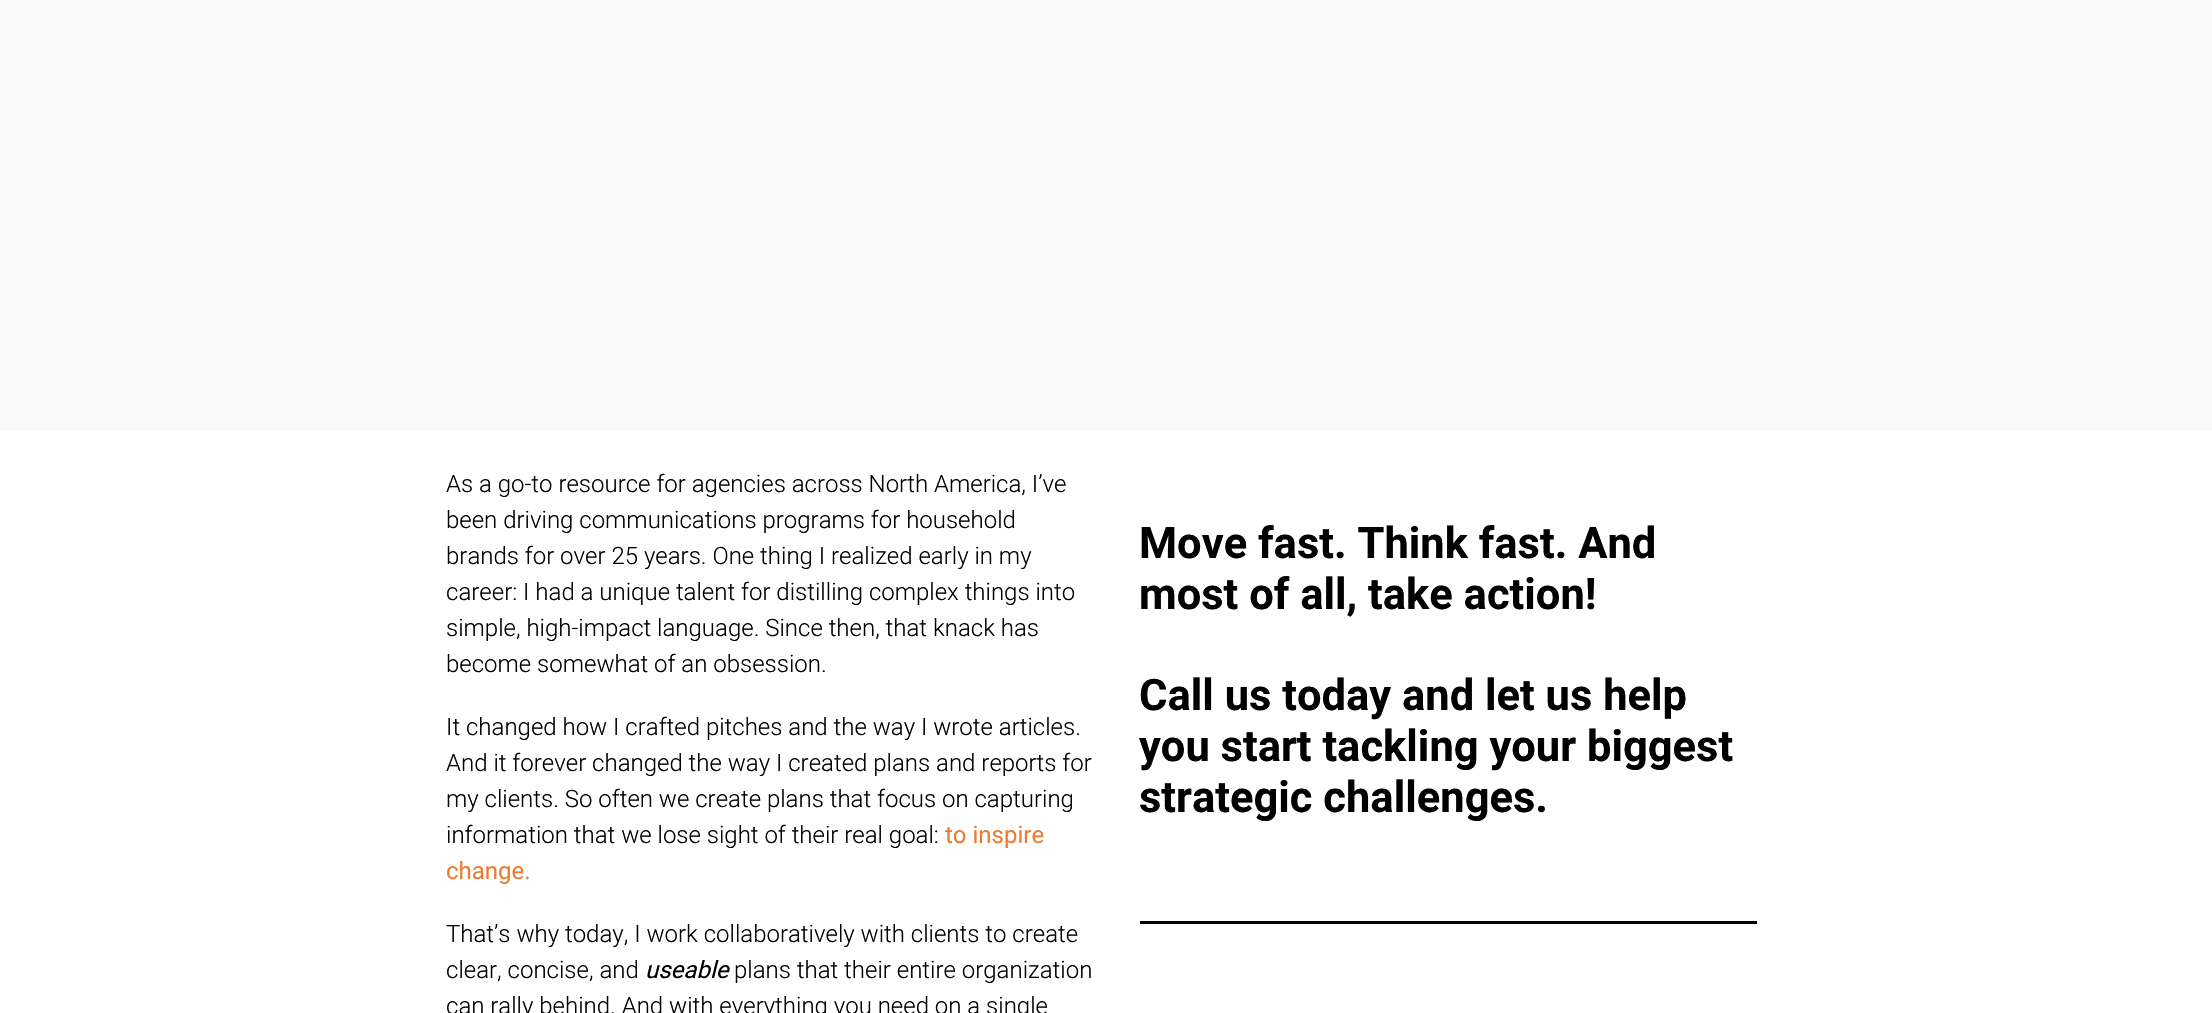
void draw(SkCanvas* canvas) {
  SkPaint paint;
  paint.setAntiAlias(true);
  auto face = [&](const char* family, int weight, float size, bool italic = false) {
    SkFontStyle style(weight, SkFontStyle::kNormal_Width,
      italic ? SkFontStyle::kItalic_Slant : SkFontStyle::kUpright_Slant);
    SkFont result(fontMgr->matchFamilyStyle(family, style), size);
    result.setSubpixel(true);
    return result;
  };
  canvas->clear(0xffffffff);
  paint.setColor(0xfffafafa);
  canvas->drawRect(SkRect::MakeXYWH(0, 0, 2212, 431), paint);
  paint.setColor(0xff000000);
  canvas->drawRect(SkRect::MakeXYWH(1140, 921, 617, 3), paint);
  auto f0 = face("Heebo", 300, 24);
  {
    const struct { const char* s; float x, y; } items[] = {
      {"As a go-to resource for agencies across North America, I’ve", 446, 492},
      {"been driving communications programs for household", 446, 528},
      {"brands for over 25 years. One thing I realized early in my", 446, 564},
      {"career: I had a unique talent for distilling complex things into", 446, 600},
      {"simple, high-impact language. Since then, that knack has", 446, 636},
      {"become somewhat of an obsession.", 446, 672},
      {"It changed how I crafted pitches and the way I wrote articles.", 446, 735},
      {"And it forever changed the way I created plans and reports for", 446, 771},
      {"my clients. So often we create plans that focus on capturing", 446, 807},
      {"information that we lose sight of their real goal:", 446, 843},
    };
    for (auto [s, x, y] : items) {
      canvas->drawString(s, x, y, f0, paint);
    }
  }
  auto f1 = face("Heebo", 400, 24);
  paint.setColor(0xffec7c31);
  canvas->drawString("to inspire", 945, 843, f1, paint);
  canvas->drawString("change.", 446, 879, f1, paint);
  paint.setColor(0xff000000);
  canvas->drawString("That’s why today, I work collaboratively with clients to create", 446, 942, f0, paint);
  canvas->drawString("clear, concise, and", 446, 978, f0, paint);
  auto f2 = face("Heebo", 400, 24, true);
  canvas->drawString("useable", 645, 978, f2, paint);
  canvas->drawString("plans that their entire organization", 734, 978, f0, paint);
  canvas->drawString("can rally behind. And with everything you need on a single", 446, 1014, f0, paint);
  auto f3 = face("Roboto", 700, 43.5f);
  {
    const struct { const char* s; float x, y; } items[] = {
      {"Move fast. Think fast. And", 1139, 558},
      {"most of all, take action!", 1139, 609},
      {"Call us today and let us help", 1139, 710},
      {"you start tackling your biggest", 1139, 761},
      {"strategic challenges.", 1139, 812},
    };
    for (auto [s, x, y] : items) {
      canvas->drawString(s, x, y, f3, paint);
    }
  }
}
